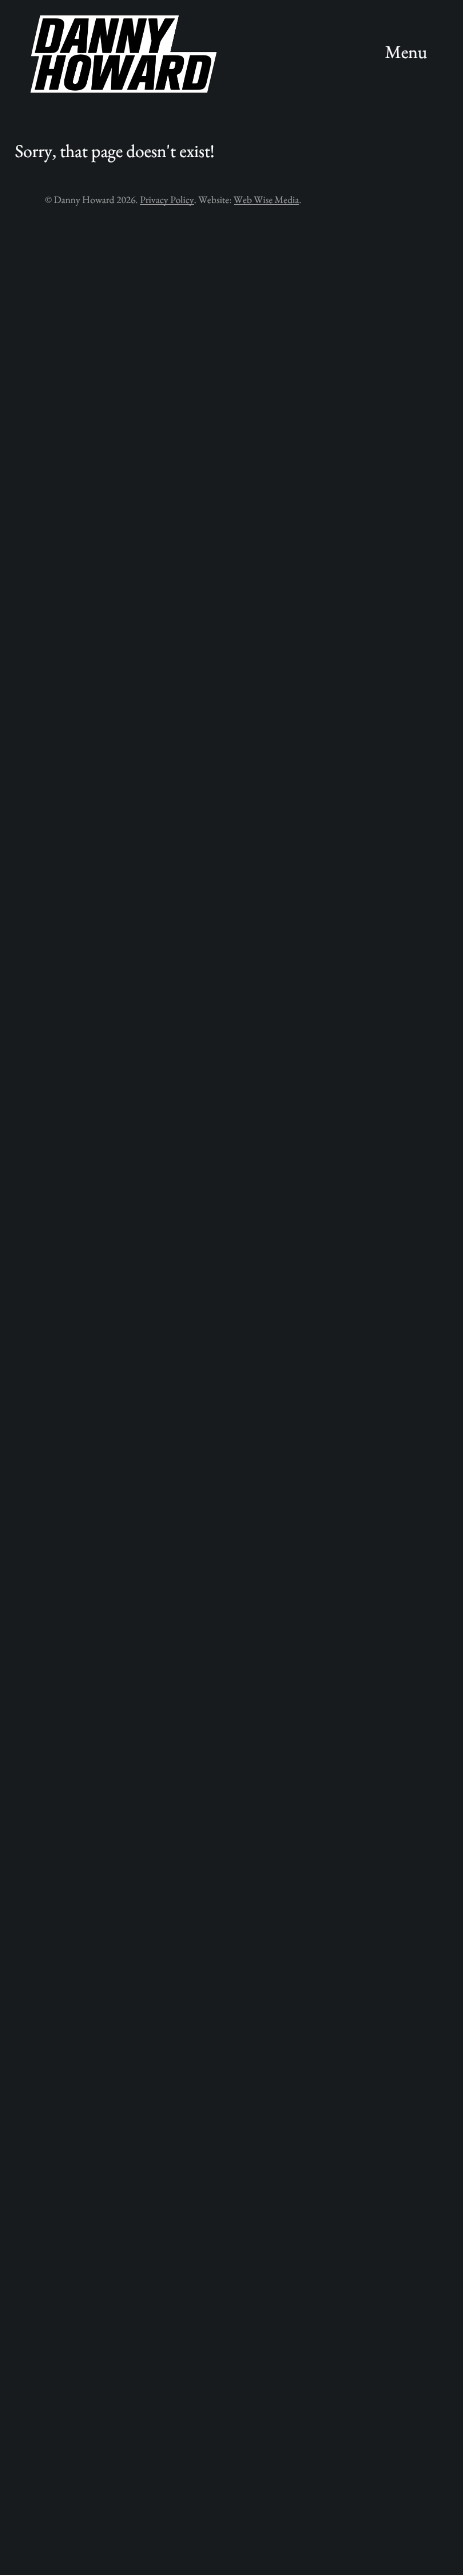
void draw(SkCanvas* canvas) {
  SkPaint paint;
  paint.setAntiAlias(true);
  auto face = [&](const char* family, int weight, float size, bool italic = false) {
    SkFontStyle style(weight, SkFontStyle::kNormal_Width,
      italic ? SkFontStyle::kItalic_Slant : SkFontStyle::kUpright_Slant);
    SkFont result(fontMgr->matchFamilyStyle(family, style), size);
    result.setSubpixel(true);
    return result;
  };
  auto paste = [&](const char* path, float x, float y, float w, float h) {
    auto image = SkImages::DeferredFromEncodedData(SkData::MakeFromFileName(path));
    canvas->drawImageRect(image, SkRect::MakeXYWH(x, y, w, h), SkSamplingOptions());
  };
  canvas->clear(0xff171b1e);
  paste("img/1.png", 30, 15, 187, 78);
  paint.setColor(0xff999999);
  canvas->drawRect(SkRect::MakeXYWH(140, 204, 54, 1), paint);
  canvas->drawRect(SkRect::MakeXYWH(234, 204, 65, 1), paint);
  auto f0 = face("EB Garamond", 400, 18);
  paint.setColor(0xffffffff);
  canvas->drawString("Menu", 385, 58, f0, paint);
  canvas->drawString("Sorry, that page doesn't exist!", 15, 157, f0, paint);
  auto f1 = face("EB Garamond", 400, 10);
  paint.setColor(0xff999999);
  canvas->drawString("© Danny Howard 2026.", 45, 203, f1, paint);
  canvas->drawString("Privacy Policy. Website: Web Wise Media.", 140, 203, f1, paint);
}
